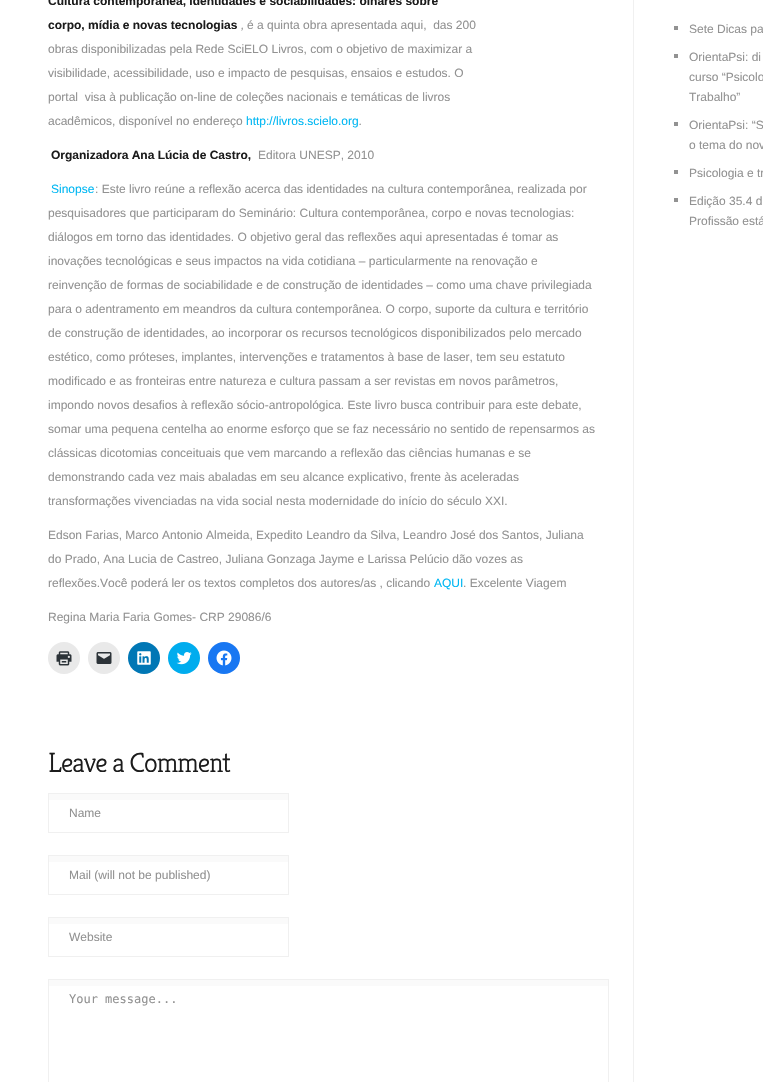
void draw(SkCanvas* canvas) {
  SkPaint paint;
  paint.setAntiAlias(true);
  auto face = [&](const char* family, int weight, float size, bool italic = false) {
    SkFontStyle style(weight, SkFontStyle::kNormal_Width,
      italic ? SkFontStyle::kItalic_Slant : SkFontStyle::kUpright_Slant);
    SkFont result(fontMgr->matchFamilyStyle(family, style), size);
    result.setSubpixel(true);
    return result;
  };
  auto writeSpaced = [&](const char* s, float x, float y, const SkFont& font, const SkPaint& ink, float letter, float word) {
    std::vector<SkGlyphID> glyphs(font.countText(s, strlen(s), SkTextEncoding::kUTF8));
    std::vector<float> xs(glyphs.size());
    font.textToGlyphs(s, strlen(s), SkTextEncoding::kUTF8, glyphs);
    font.getXPos(glyphs, xs, x);
    float extra = 0;
    for (size_t i = 0; i < glyphs.size(); i++) {
      xs[i] += extra;
      extra += letter + word * (glyphs[i] == font.unicharToGlyph(' '));
    }
    canvas->drawTextBlob(SkTextBlob::MakeFromPosHGlyphs(glyphs, xs, y, font), 0, 0, ink);
  };
  auto paste = [&](const char* path, float x, float y, float w, float h) {
    auto image = SkImages::DeferredFromEncodedData(SkData::MakeFromFileName(path));
    canvas->drawImageRect(image, SkRect::MakeXYWH(x, y, w, h), SkSamplingOptions());
  };
  canvas->clear(0xffffffff);
  paint.setColor(0xfff0f0f0);
  canvas->drawRect(SkRect::MakeXYWH(633, 0, 1, 1082), paint);
  paint.setColor(0xffe9e9e9);
  canvas->drawCircle(64, 658, 16, paint);
  paste("img/1.png", 56, 651, 16, 15);
  canvas->drawCircle(104, 658, 16, paint);
  paste("img/2.png", 96, 652, 16, 12);
  paint.setColor(0xff0077b5);
  canvas->drawCircle(144, 658, 16, paint);
  paste("img/3.png", 137, 651, 14, 14);
  paint.setColor(0xff00acee);
  canvas->drawCircle(184, 658, 16, paint);
  paste("img/4.png", 176, 652, 16, 13);
  paint.setColor(0xff1877f2);
  canvas->drawCircle(224, 658, 16, paint);
  paste("img/5.png", 216, 650, 16, 16);
  paint.setColor(0xfffafafa);
  canvas->drawRect(SkRect::MakeXYWH(48, 794, 241, 6), paint);
  paint.setStroke(true);
  paint.setStrokeWidth(1);
  paint.setColor(0xfff0f0f0);
  canvas->drawRect(SkRect::MakeXYWH(48.5f, 793.5f, 240, 39), paint);
  paint.setStroke(false);
  paint.setColor(0xfffafafa);
  canvas->drawRect(SkRect::MakeXYWH(48, 856, 241, 6), paint);
  paint.setStroke(true);
  paint.setColor(0xfff0f0f0);
  canvas->drawRect(SkRect::MakeXYWH(48.5f, 855.5f, 240, 39), paint);
  paint.setStroke(false);
  paint.setColor(0xfffafafa);
  canvas->drawRect(SkRect::MakeXYWH(48, 918, 241, 6), paint);
  paint.setStroke(true);
  paint.setColor(0xfff0f0f0);
  canvas->drawRect(SkRect::MakeXYWH(48.5f, 917.5f, 240, 39), paint);
  paint.setStroke(false);
  paint.setColor(0xfffafafa);
  canvas->drawRect(SkRect::MakeXYWH(48, 980, 561, 6), paint);
  paint.setStroke(true);
  paint.setColor(0xfff0f0f0);
  canvas->drawRect(SkRect::MakeXYWH(48.5f, 979.5f, 560, 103), paint);
  paint.setStroke(false);
  {
    const struct { float x, y, w, h; SkColor color; } items[] = {
      {674, 26, 4, 4, 0xff929292},
      {674, 54, 4, 4, 0xff929292},
      {674, 122, 4, 4, 0xff929292},
      {674, 170, 4, 4, 0xff929292},
      {674, 198, 4, 4, 0xff929292},
    };
    for (auto [x, y, w, h, color] : items) {
      paint.setColor(color);
      canvas->drawRect(SkRect::MakeXYWH(x, y, w, h), paint);
    }
  }
  auto f0 = face("Liberation Sans", 700, 12);
  paint.setColor(0xff1c1c1c);
  canvas->drawString("Cultura contemporânea, identidades e sociabilidades: olhares sobre", 48, 5, f0, paint);
  canvas->drawString("corpo, mídia e novas tecnologias", 48, 29, f0, paint);
  auto f1 = face("Liberation Sans", 400, 12, true);
  paint.setColor(0xff929292);
  canvas->drawString(",", 241, 29, f1, paint);
  auto f2 = face("Liberation Sans", 400, 12);
  {
    const struct { const char* s; float x, y; } items[] = {
      {"é a quinta obra apresentada aqui,  das 200", 247, 29},
      {"obras disponibilizadas pela Rede SciELO Livros, com o objetivo de maximizar a", 48, 53},
      {"visibilidade, acessibilidade, uso e impacto de pesquisas, ensaios e estudos. O", 48, 77},
      {"portal  visa à publicação on-line de coleções nacionais e temáticas de livros", 48, 101},
      {"acadêmicos, disponível no endereço", 48, 125},
    };
    for (auto [s, x, y] : items) {
      canvas->drawString(s, x, y, f2, paint);
    }
  }
  paint.setColor(0xff00b7f3);
  canvas->drawString("http://livros.scielo.org", 246, 125, f2, paint);
  paint.setColor(0xff929292);
  canvas->drawString(".", 359, 125, f1, paint);
  paint.setColor(0xff1c1c1c);
  canvas->drawString("Organizadora Ana Lúcia de Castro,", 51, 159, f0, paint);
  paint.setColor(0xff929292);
  canvas->drawString("Editora UNESP, 2010", 258, 159, f2, paint);
  paint.setColor(0xff00b7f3);
  canvas->drawString("Sinopse", 51, 193, f2, paint);
  paint.setColor(0xff929292);
  {
    const struct { const char* s; float x, y; } items[] = {
      {": Este livro reúne a reflexão acerca das identidades na cultura contemporânea, realizada por", 95, 193},
      {"pesquisadores que participaram do Seminário: Cultura contemporânea, corpo e novas tecnologias:", 48, 217},
      {"diálogos em torno das identidades. O objetivo geral das reflexões aqui apresentadas é tomar as", 48, 241},
      {"inovações tecnológicas e seus impactos na vida cotidiana – particularmente na renovação e", 48, 265},
      {"reinvenção de formas de sociabilidade e de construção de identidades – como uma chave privilegiada", 48, 289},
      {"para o adentramento em meandros da cultura contemporânea. O corpo, suporte da cultura e território", 48, 313},
      {"de construção de identidades, ao incorporar os recursos tecnológicos disponibilizados pelo mercado", 48, 337},
      {"estético, como próteses, implantes, intervenções e tratamentos à base de laser, tem seu estatuto", 48, 361},
      {"modificado e as fronteiras entre natureza e cultura passam a ser revistas em novos parâmetros,", 48, 385},
      {"impondo novos desafios à reflexão sócio-antropológica. Este livro busca contribuir para este debate,", 48, 409},
      {"somar uma pequena centelha ao enorme esforço que se faz necessário no sentido de repensarmos as", 48, 433},
      {"clássicas dicotomias conceituais que vem marcando a reflexão das ciências humanas e se", 48, 457},
      {"demonstrando cada vez mais abaladas em seu alcance explicativo, frente às aceleradas", 48, 481},
      {"transformações vivenciadas na vida social nesta modernidade do início do século XXI.", 48, 505},
      {"Edson Farias, Marco Antonio Almeida, Expedito Leandro da Silva, Leandro José dos Santos, Juliana", 48, 539},
      {"do Prado, Ana Lucia de Castreo, Juliana Gonzaga Jayme e Larissa Pelúcio dão vozes as", 48, 563},
      {"reflexões.Você poderá ler os textos completos dos autores/as , clicando", 48, 587},
    };
    for (auto [s, x, y] : items) {
      canvas->drawString(s, x, y, f2, paint);
    }
  }
  paint.setColor(0xff00b7f3);
  canvas->drawString("AQUI", 434, 587, f2, paint);
  paint.setColor(0xff929292);
  canvas->drawString(". Excelente Viagem", 463, 587, f2, paint);
  canvas->drawString("Regina Maria Faria Gomes- CRP 29086/6", 48, 621, f2, paint);
  auto f3 = face("Kreon", 300, 28);
  paint.setColor(0xff1c1c1c);
  writeSpaced("Leave a Comment", 48, 772, f3, paint, -1, 0);
  paint.setColor(0xff929292);
  {
    const struct { const char* s; float x, y; } items[] = {
      {"Name", 69, 817},
      {"Mail (will not be published)", 69, 879},
      {"Website", 69, 941},
    };
    for (auto [s, x, y] : items) {
      canvas->drawString(s, x, y, f2, paint);
    }
  }
  auto f4 = face("DejaVu Sans Mono", 400, 12);
  canvas->drawString("Your message...", 69, 1003, f4, paint);
  {
    const struct { const char* s; float x, y; } items[] = {
      {"Sete Dicas pa", 689, 33},
      {"OrientaPsi: di", 689, 61},
      {"curso “Psicolo", 689, 81},
      {"Trabalho”", 689, 101},
      {"OrientaPsi: “S", 689, 129},
      {"o tema do nov", 689, 149},
      {"Psicologia e tr", 689, 177},
      {"Edição 35.4 d", 689, 205},
      {"Profissão está", 689, 225},
    };
    for (auto [s, x, y] : items) {
      canvas->drawString(s, x, y, f2, paint);
    }
  }
}
